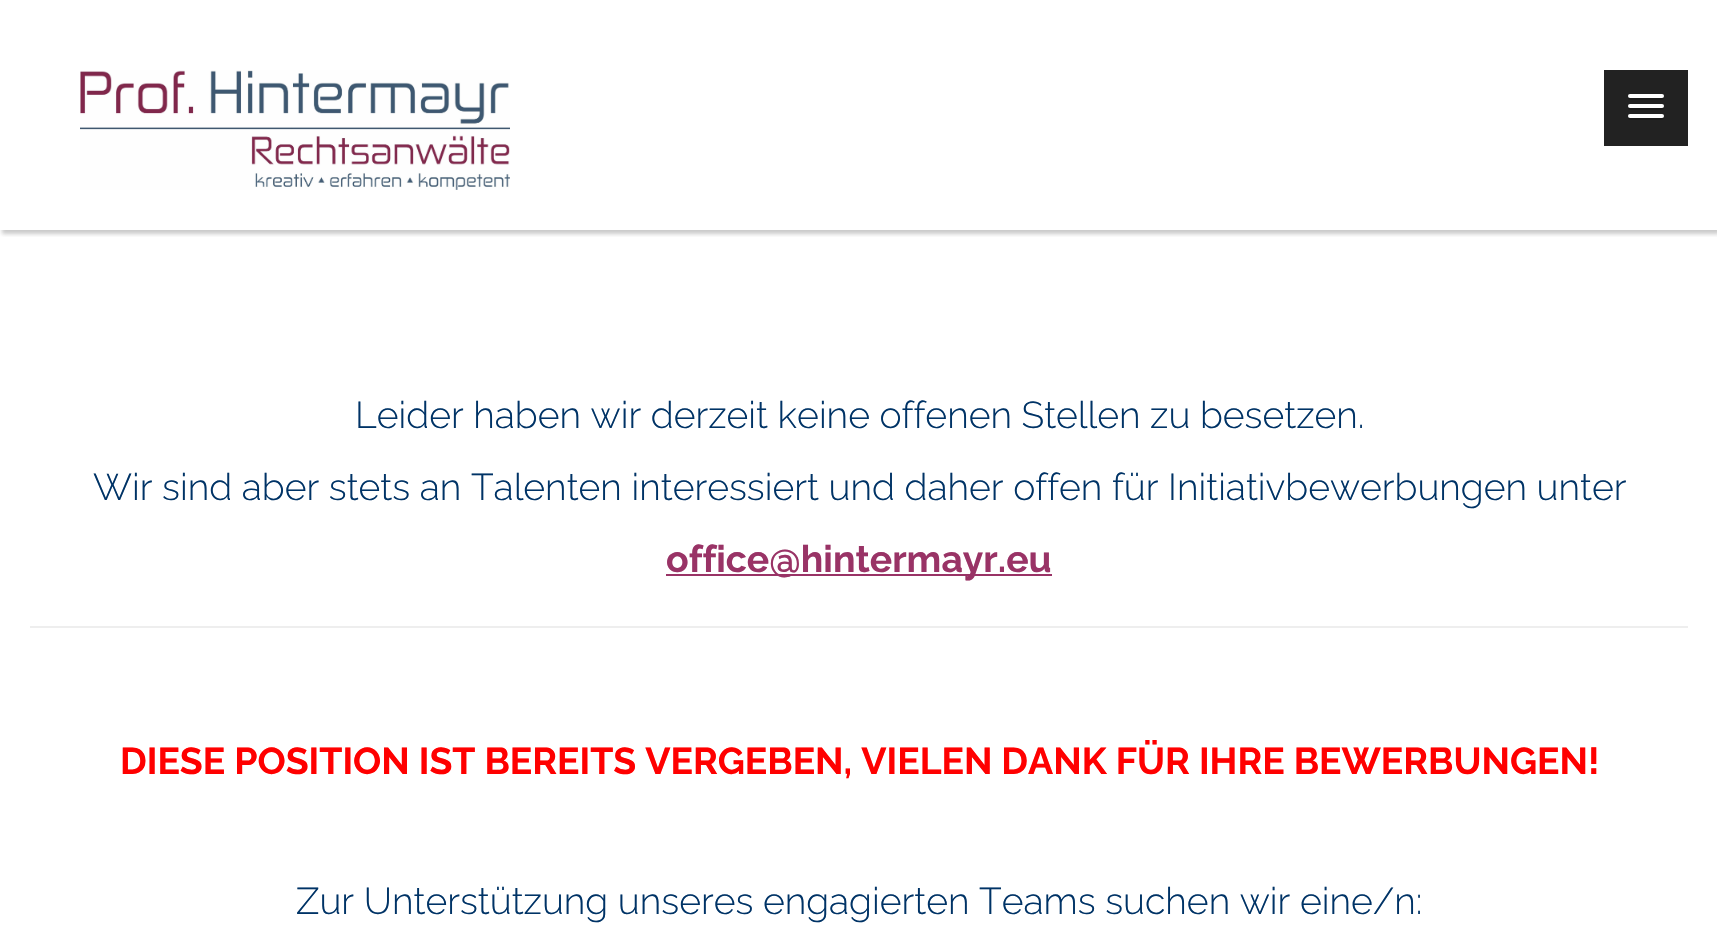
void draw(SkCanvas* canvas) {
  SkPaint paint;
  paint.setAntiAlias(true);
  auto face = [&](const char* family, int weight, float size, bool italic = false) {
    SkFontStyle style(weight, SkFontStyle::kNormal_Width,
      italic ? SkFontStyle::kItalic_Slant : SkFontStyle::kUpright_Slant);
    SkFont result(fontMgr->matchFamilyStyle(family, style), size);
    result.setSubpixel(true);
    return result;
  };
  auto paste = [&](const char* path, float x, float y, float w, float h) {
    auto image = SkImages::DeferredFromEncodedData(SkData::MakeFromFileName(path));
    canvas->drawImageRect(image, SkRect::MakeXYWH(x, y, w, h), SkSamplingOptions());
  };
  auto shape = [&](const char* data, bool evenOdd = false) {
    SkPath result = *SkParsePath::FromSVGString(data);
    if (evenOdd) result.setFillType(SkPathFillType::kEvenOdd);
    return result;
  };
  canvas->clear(0xffffffff);
  canvas->save();
  canvas->clipRect(SkRect::MakeXYWH(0, 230, 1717, 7));
  paint.setColor(0x3b1a1a1a);
  paint.setMaskFilter(SkMaskFilter::MakeBlur(kNormal_SkBlurStyle, 2));
  canvas->drawRect(SkRect::MakeXYWH(2, 4, 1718, 230), paint);
  paint.setMaskFilter(nullptr);
  canvas->restore();
  paste("img/1.png", 80, 70, 430, 120);
  paint.setColor(0xff222222);
  canvas->drawRect(SkRect::MakeXYWH(1604, 70, 84, 76), paint);
  paint.setColor(0xff1a1a1a);
  canvas->drawPath(shape("M1628.5 97C1626 101 1635 100 1635.5 100H1656.5C1657 100 1666 101 1663.5 97C1663.5 97.5 1662.5 98 1662 98H1630C1629.5 98 1628.5 97.5 1628.5 97Z"), paint);
  paint.setColor(0xffffffff);
  canvas->drawRoundRect(SkRect::MakeXYWH(1628, 94, 36, 4), 2, 2, paint);
  paint.setColor(0xff1a1a1a);
  canvas->drawPath(shape("M1628.5 107C1626 111 1635 110 1635.5 110H1656.5C1657 110 1666 111 1663.5 107C1663.5 107.5 1662.5 108 1662 108H1630C1629.5 108 1628.5 107.5 1628.5 107Z"), paint);
  paint.setColor(0xffffffff);
  canvas->drawRoundRect(SkRect::MakeXYWH(1628, 104, 36, 4), 2, 2, paint);
  paint.setColor(0xff1a1a1a);
  canvas->drawPath(shape("M1628.5 117C1626 121 1635 120 1635.5 120H1656.5C1657 120 1666 121 1663.5 117C1663.5 117.5 1662.5 118 1662 118H1630C1629.5 118 1628.5 117.5 1628.5 117Z"), paint);
  paint.setColor(0xffffffff);
  canvas->drawRoundRect(SkRect::MakeXYWH(1628, 114, 36, 4), 2, 2, paint);
  paint.setColor(0xff993366);
  canvas->drawRect(SkRect::MakeXYWH(666, 574, 386, 2), paint);
  paint.setColor(0xffeeeeee);
  canvas->drawRect(SkRect::MakeXYWH(30, 626, 1658, 2), paint);
  auto f0 = face("Raleway", 100, 37.35f);
  paint.setColor(0xff003366);
  canvas->drawString("Leider haben wir derzeit keine offenen Stellen zu besetzen.", 355, 428, f0, paint);
  canvas->drawString("Wir sind aber stets an Talenten interessiert und daher offen für Initiativbewerbungen unter", 93, 500, f0, paint);
  auto f1 = face("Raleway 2", 100, 37.35f);
  paint.setColor(0xff993366);
  canvas->drawString("office@hintermayr.eu", 666, 572, f1, paint);
  paint.setColor(0xffff0000);
  canvas->drawString("DIESE POSITION IST BEREITS VERGEBEN, VIELEN DANK FÜR IHRE BEWERBUNGEN!", 120, 774, f1, paint);
  paint.setColor(0xff003366);
  canvas->drawString("Zur Unterstützung unseres engagierten Teams suchen wir eine/n:", 296, 914, f0, paint);
}
